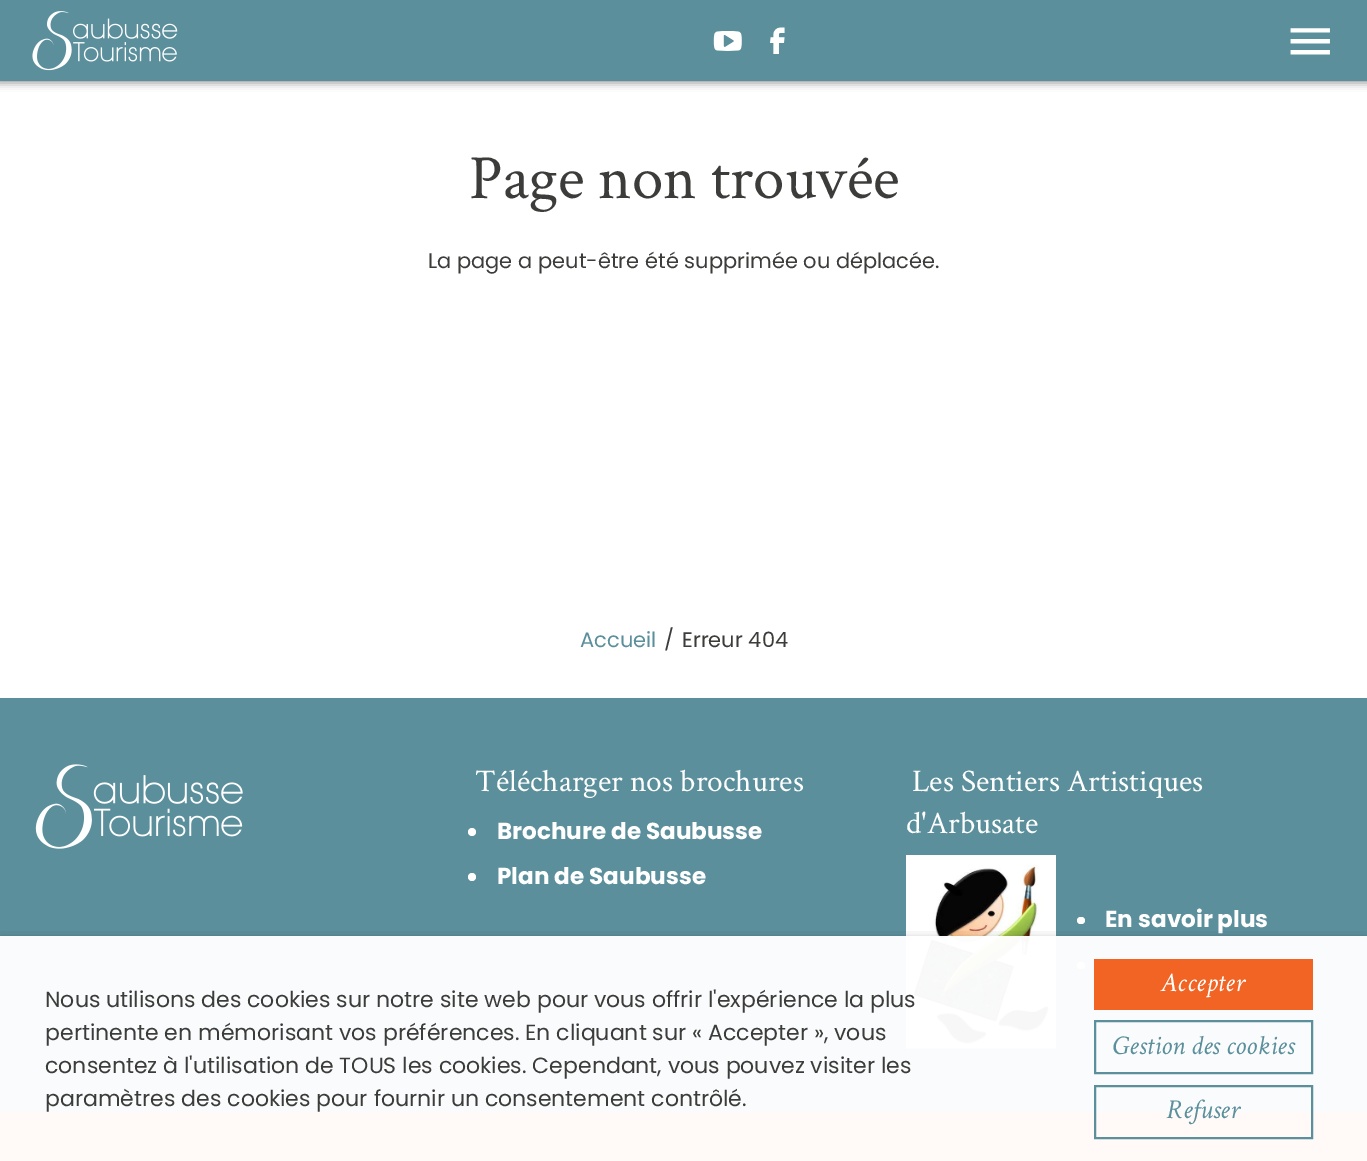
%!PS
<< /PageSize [1367 1161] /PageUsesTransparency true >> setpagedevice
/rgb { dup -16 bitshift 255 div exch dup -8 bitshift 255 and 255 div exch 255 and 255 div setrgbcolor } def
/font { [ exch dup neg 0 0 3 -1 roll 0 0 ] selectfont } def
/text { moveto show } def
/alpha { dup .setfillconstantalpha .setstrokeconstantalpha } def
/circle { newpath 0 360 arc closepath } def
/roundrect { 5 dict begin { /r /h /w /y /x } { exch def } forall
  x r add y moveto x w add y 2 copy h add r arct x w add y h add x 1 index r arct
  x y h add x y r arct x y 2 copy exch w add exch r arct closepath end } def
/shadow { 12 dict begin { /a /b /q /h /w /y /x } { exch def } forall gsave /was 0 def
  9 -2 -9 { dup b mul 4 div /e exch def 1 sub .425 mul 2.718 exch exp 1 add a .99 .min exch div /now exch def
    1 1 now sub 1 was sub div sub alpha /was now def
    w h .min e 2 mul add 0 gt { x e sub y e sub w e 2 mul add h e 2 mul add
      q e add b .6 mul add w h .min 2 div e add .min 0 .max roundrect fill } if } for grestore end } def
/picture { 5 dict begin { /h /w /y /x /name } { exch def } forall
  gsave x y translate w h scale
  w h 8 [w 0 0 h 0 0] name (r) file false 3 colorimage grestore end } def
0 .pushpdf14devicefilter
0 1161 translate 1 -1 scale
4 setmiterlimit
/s1 { /CrimsonText-Regular 63 font 16#3C3C3B rgb } def
/s2 { /Poppins-Regular 21 font 16#3C3C3B rgb } def
/s3 { /Poppins-Regular 21 font 16#5B8F9C rgb } def
/s4 { /CrimsonText-Regular 31.5 font 16#FFFFFF rgb } def
/s5 { /Poppins-Bold 23.1 font 16#FFFFFF rgb } def
/s6 { /Poppins-Regular 22 font 16#3C3C3B rgb } def
/s7 { /CrimsonText-Italic 27.25 font 16#FFFFFF rgb } def
/s8 { /CrimsonText-Italic 27.25 font 16#5B8F9C rgb } def
16#FFFFFF rgb
0 0 1367 1161 rectfill
16#323232 rgb
-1 -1 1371 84 0 4 0.5 shadow
16#5B8F9C rgb
0 0 1367 81 rectfill
(pic1.raw) 32 11 146 60 picture
(pic2.raw) 713 31 29 20 picture
(pic3.raw) 770 27 15 27 picture
(pic4.raw) 1290 28 40 27 picture
s1
(Page non trouvée) 469 198 text
s2
(La page a peut-être été supprimée ou déplacée.) 428 268 text
s3
(Accueil) 580 647 text
s2
(/) 664 647 text
(Erreur 404) 682 647 text
16#5B8F9C rgb
0 698 1367 414 rectfill
(pic5.raw) 35 764 208 85 picture
s4
(Télécharger nos brochures) 475 791 text
472 832 4 circle fill
s5
(Brochure de Saubusse) 497 839 text
472 877 4 circle fill
(Plan de Saubusse) 497 884 text
s4
(Les Sentiers Artistiques) 912 791 text
(d'Arbusate) 906 833 text
(pic6.raw) 906 855 150 194 picture
1077 917 8 7 3.5 roundrect fill
s5
(En savoir plus) 1105 927 text
1077 962 8 7 3.5 roundrect fill
16#F16424 rgb
0 1112 1367 49 rectfill
gsave
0 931 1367 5 rectclip
16#000000 rgb
0 944 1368 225 0 7.5 0.5 shadow
grestore
0.97 alpha
16#FFFFFF rgb
0 936 1367 225 rectfill
1 alpha
s6
(Nous utilisons des cookies sur notre site web pour vous offrir l'expérience la plus) 45 1007 text
(pertinente en mémorisant vos préférences. En cliquant sur « Accepter », vous) 45 1040 text
(consentez à l'utilisation de TOUS les cookies. Cependant, vous pouvez visiter les) 45 1073 text
(paramètres des cookies pour fournir un consentement contrôlé.) 45 1106 text
16#F16424 rgb
1094 959 219 51 rectfill
s7
(Accepter) 1161 991 text
16#5B8F9C rgb
2 setlinewidth
1095 1021 217 52 rectstroke
(Gestion des cookies) 1112 1054 text
1095 1086 217 52 rectstroke
(Refuser) 1166 1118 text
.poppdf14devicefilter showpage
